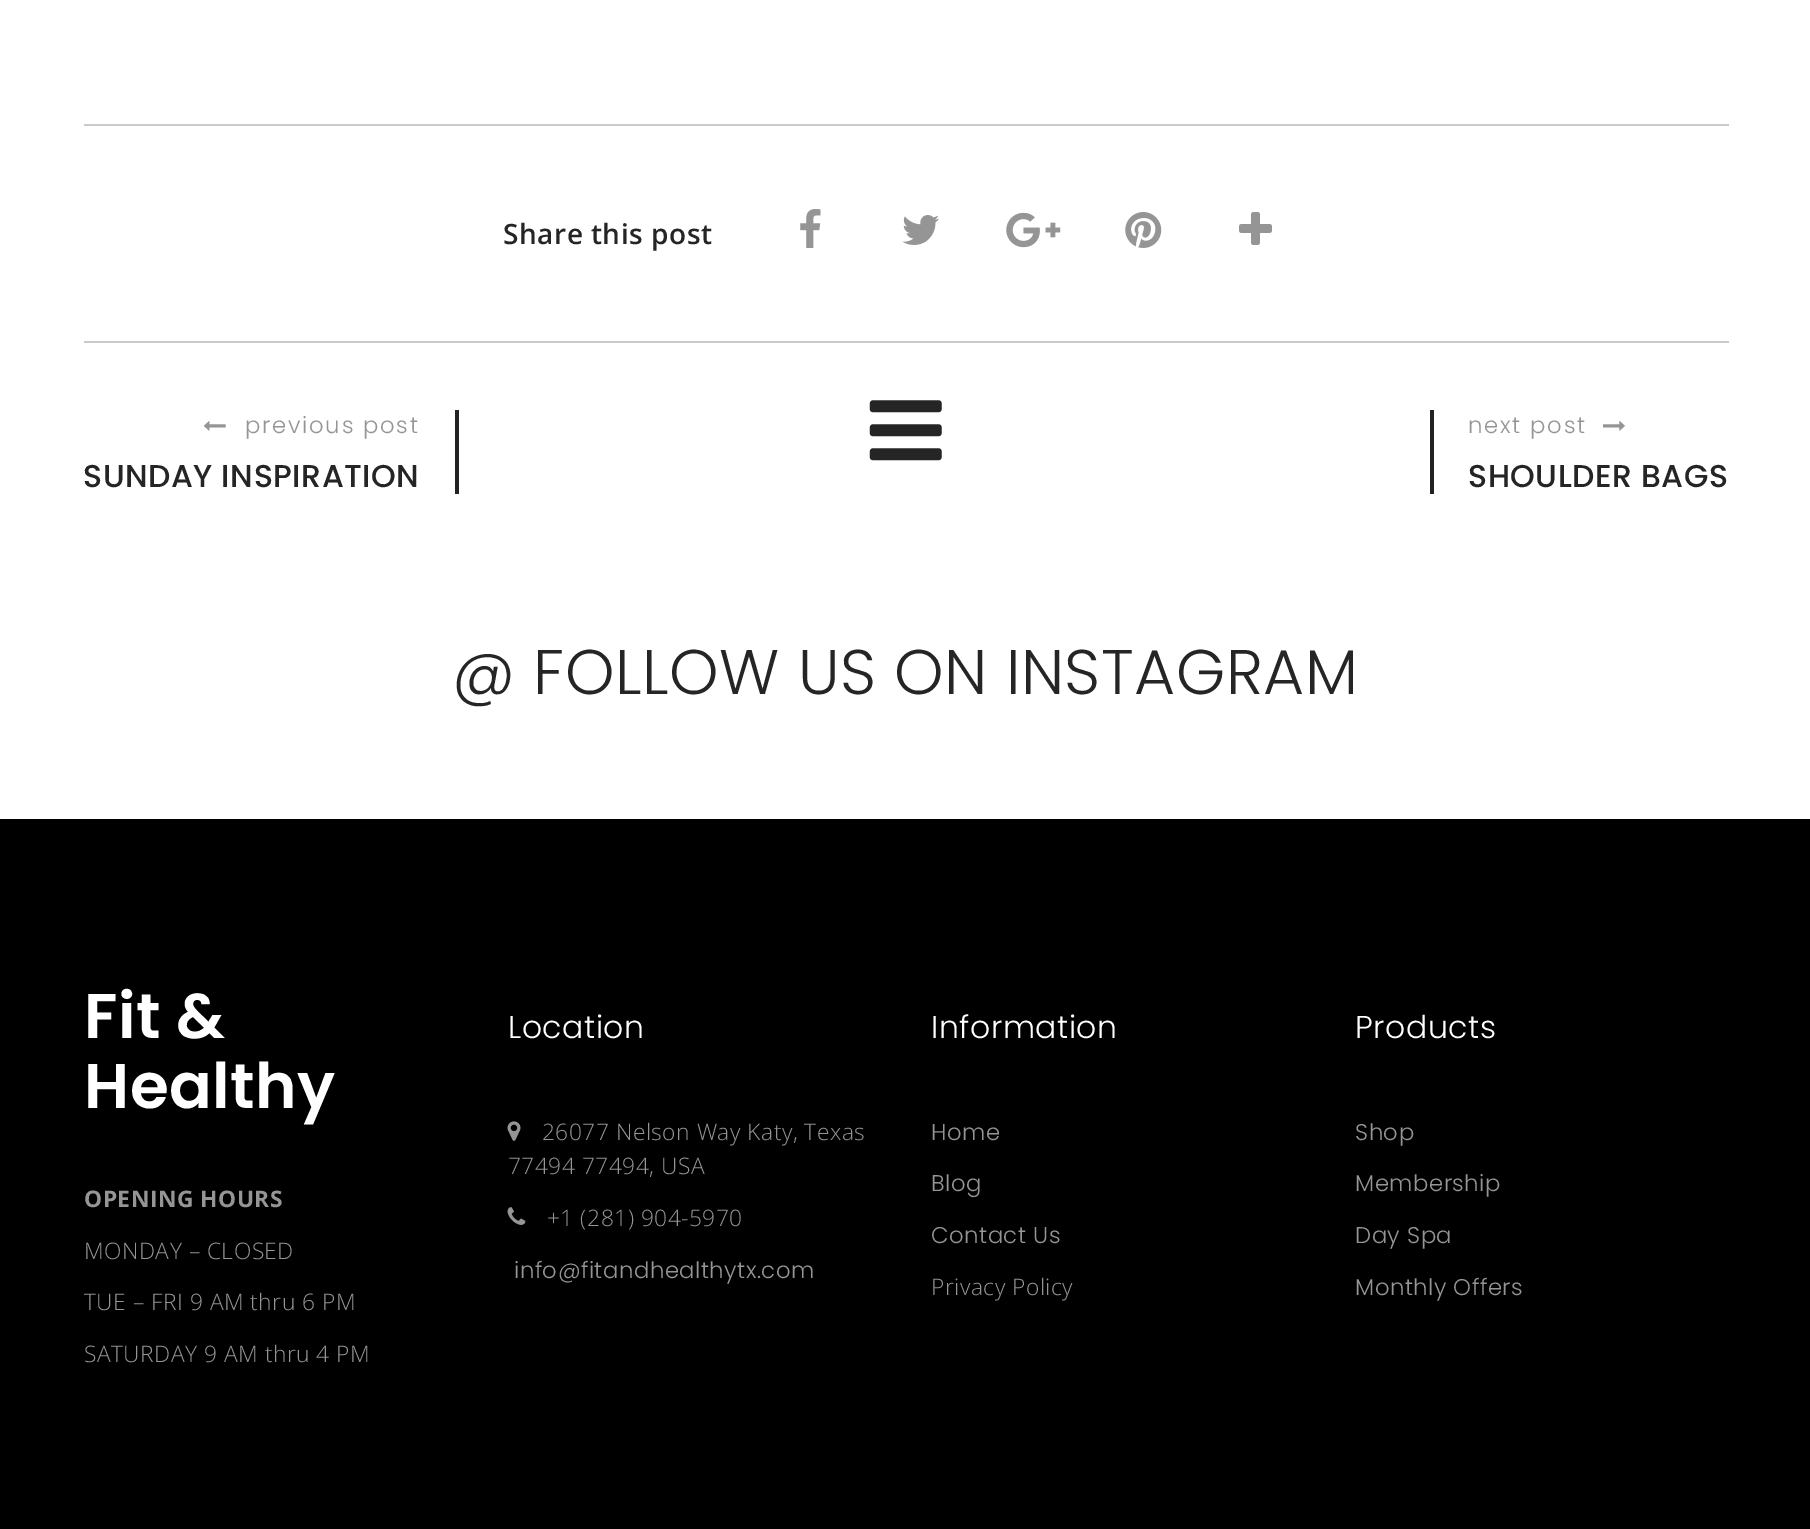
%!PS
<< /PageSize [1810 1529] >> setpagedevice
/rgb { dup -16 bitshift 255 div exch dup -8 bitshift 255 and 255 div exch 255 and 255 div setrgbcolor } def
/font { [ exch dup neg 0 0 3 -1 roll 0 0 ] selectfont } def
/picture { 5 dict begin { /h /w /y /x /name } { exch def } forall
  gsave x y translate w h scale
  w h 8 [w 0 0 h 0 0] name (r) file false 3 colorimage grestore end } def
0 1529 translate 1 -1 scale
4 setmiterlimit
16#FFFFFF rgb
0 0 1810 1529 rectfill
16#CACACA rgb
84 124 1645 2 rectfill
84 341 1645 2 rectfill
/OpenSans-SemiBold 28 font
16#252525 rgb
503 244 moveto 0.5 0 (Share this post) ashow
(pic1.raw) 800 209 21 39 picture
(pic2.raw) 902 215 37 30 picture
(pic3.raw) 1006 212 55 36 picture
(pic4.raw) 1125 212 37 36 picture
(pic5.raw) 1239 212 33 33 picture
16#222222 rgb
455 410 4 84 rectfill
(pic6.raw) 203 421 23 10 picture
/Poppins-Light 22.75 font
16#959595 rgb
245 433 moveto 1.75 0 (previous post) ashow
/Poppins-Medium 31.5 font
16#252525 rgb
83 487 moveto 0.5 0 (SUNDAY INSPIRATION) ashow
(pic7.raw) 869 400 73 61 picture
16#222222 rgb
1430 410 4 84 rectfill
/Poppins-Light 22.75 font
16#959595 rgb
1468 433 moveto 1.75 0 (next post) ashow
(pic8.raw) 1603 421 22 10 picture
/Poppins-Medium 31.5 font
16#252525 rgb
1468 487 moveto 0.5 0 (SHOULDER BAGS) ashow
/Poppins-Light 63 font
452 694 moveto 0.5 0 (@ FOLLOW US ON INSTAGRAM) ashow
16#000000 rgb
0 819 1810 710 rectfill
/Poppins-SemiBold 63 font
16#FFFFFF rgb
84 1038 moveto 0.5 0 (Fit &) ashow
84 1108 moveto 0.5 0 (Healthy) ashow
/OpenSans-Bold 22.75 font
16#959595 rgb
84 1207 moveto 0.5 0 (OPENING HOURS) ashow
/OpenSans-Light 22.75 font
84 1259 moveto 0.5 0 (MONDAY – CLOSED) ashow
84 1310 moveto 0.5 0 (TUE – FRI 9 AM thru 6 PM) ashow
84 1362 moveto 0.5 0 (SATURDAY 9 AM thru 4 PM) ashow
/Poppins-Light 31.5 font
16#FFFFFF rgb
508 1038 moveto 0.5 0 (Location) ashow
(pic9.raw) 507 1121 14 20 picture
/OpenSans-Light 22.75 font
16#959595 rgb
542 1140 moveto 0.5 0 (26077 Nelson Way Katy, Texas) ashow
508 1174 moveto 0.5 0 (77494 77494, USA) ashow
(pic10.raw) 507 1207 19 18 picture
547 1226 moveto 0.5 0 (+1 \(281\) 904-5970) ashow
/Poppins-Light 22.75 font
514 1278 moveto 0.5 0 (info@fitandhealthytx.com) ashow
/Poppins-Light 31.5 font
16#FFFFFF rgb
931 1038 moveto 0.5 0 (Information) ashow
/Poppins-Light 22.75 font
16#959595 rgb
931 1140 moveto 0.5 0 (Home) ashow
931 1191 moveto 0.5 0 (Blog) ashow
931 1243 moveto 0.5 0 (Contact Us) ashow
/OpenSans-Light 22.75 font
931 1295 moveto 0.5 0 (Privacy Policy) ashow
/Poppins-Light 31.5 font
16#FFFFFF rgb
1355 1038 moveto 0.5 0 (Products) ashow
/Poppins-Light 22.75 font
16#959595 rgb
1355 1140 moveto 0.5 0 (Shop) ashow
1355 1191 moveto 0.5 0 (Membership) ashow
1355 1243 moveto 0.5 0 (Day Spa) ashow
1355 1295 moveto 0.5 0 (Monthly Offers) ashow
showpage
